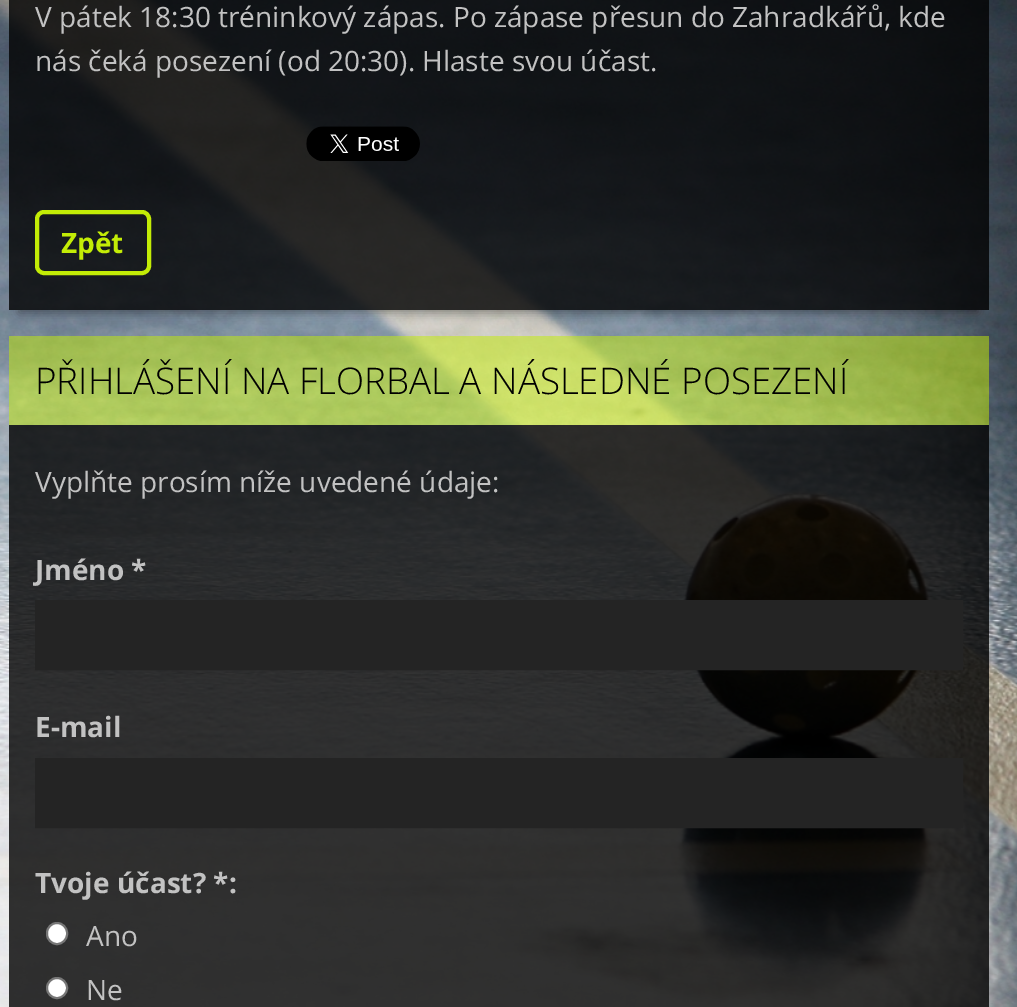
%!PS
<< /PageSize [1017 1007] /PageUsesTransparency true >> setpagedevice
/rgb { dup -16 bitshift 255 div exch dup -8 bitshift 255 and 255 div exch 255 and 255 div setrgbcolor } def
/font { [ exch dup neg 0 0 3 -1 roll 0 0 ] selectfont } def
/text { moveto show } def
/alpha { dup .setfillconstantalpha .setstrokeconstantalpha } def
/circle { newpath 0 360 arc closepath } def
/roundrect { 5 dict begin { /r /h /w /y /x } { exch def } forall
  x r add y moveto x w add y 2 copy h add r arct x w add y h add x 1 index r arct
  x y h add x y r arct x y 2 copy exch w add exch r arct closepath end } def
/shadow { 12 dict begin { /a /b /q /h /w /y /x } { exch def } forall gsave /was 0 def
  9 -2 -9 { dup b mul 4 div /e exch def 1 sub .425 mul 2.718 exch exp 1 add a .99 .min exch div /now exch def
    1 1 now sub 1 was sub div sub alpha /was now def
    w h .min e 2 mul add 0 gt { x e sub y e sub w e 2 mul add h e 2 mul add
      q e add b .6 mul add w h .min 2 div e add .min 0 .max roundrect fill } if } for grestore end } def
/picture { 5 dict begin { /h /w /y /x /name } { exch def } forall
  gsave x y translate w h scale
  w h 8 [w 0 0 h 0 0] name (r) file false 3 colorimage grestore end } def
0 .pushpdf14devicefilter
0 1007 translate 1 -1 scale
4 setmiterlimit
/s1 { /OpenSans-Regular 28 font 16#C2C2C2 rgb } def
/s2 { /OpenSans-Bold 28 font 16#C3EC06 rgb } def
/s3 { /OpenSans-Light 36.75 font 16#000000 rgb } def
/s4 { /OpenSans-Bold 28 font 16#C2C2C2 rgb } def
16#FFFFFF rgb
0 0 1017 1007 rectfill
(pic1.raw) 0 0 1017 1007 picture
gsave
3 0 moveto 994 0 lineto 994 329 lineto 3 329 lineto closepath 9 -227 moveto 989 -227 lineto 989 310 lineto 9 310 lineto closepath eoclip newpath
16#000000 rgb
19 -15 959 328 0 5 0.35 shadow
grestore
0.8 alpha
16#000000 rgb
9 0 980 126 rectfill
1 alpha
s1
(V pátek 18:30 tréninkový zápas. Po zápase přesun do Zahradkářů, kde) 35 27 text
(nás čeká posezení \(od 20:30\). Hlaste svou účast.) 35 71 text
0.8 alpha
16#000000 rgb
9 126 980 184 rectfill
1 alpha
(pic2.raw) 306 126 114 35 picture
16#C3EC06 rgb
4 setlinewidth
37 212 112 61 7 roundrect stroke
s2
(Zpět) 61 253 text
0.5 alpha
9 336 980 89 rectfill
1 alpha
s3
(PŘIHLÁŠENÍ NA FLORBAL A NÁSLEDNÉ POSEZENÍ) 35 394 text
0.8 alpha
9 425 980 582 rectfill
1 alpha
s1
(Vyplňte prosím níže uvedené údaje:) 35 492 text
s4
(Jméno *) 35 580 text
16#242424 rgb
36 601 moveto 962 601 lineto 962 669 lineto 36 669 lineto closepath gsave fill grestore
2 setlinewidth
stroke
s4
(E-mail) 35 737 text
16#242424 rgb
36 759 moveto 962 759 lineto 962 827 lineto 36 827 lineto closepath gsave fill grestore
stroke
s4
(Tvoje účast? *:) 35 893 text
16#FFFFFF rgb
47 923 20 21 10 roundrect gsave fill grestore
16#767676 rgb
stroke
s1
(Ano) 86 946 text
16#FFFFFF rgb
57 988 10 circle gsave fill grestore
16#767676 rgb
stroke
s1
(Ne) 86 1000 text
.poppdf14devicefilter showpage
